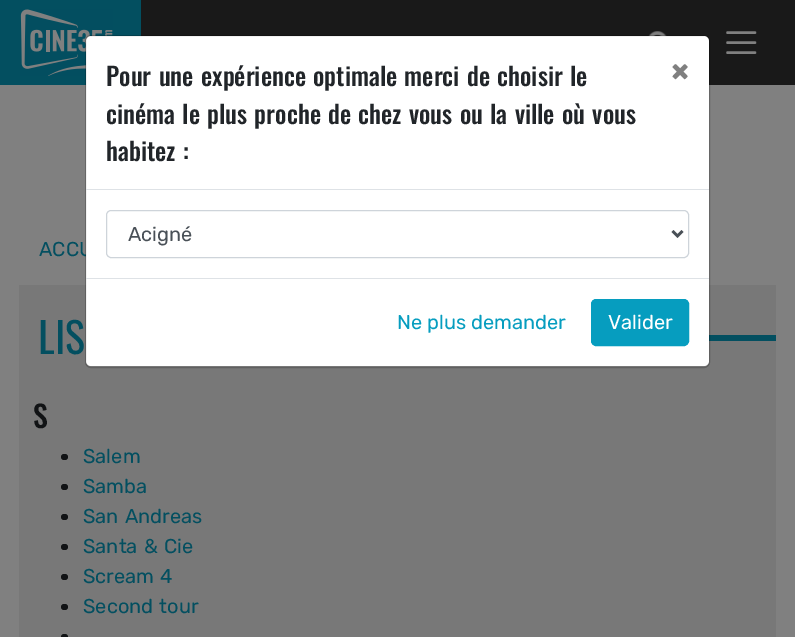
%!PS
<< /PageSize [795 637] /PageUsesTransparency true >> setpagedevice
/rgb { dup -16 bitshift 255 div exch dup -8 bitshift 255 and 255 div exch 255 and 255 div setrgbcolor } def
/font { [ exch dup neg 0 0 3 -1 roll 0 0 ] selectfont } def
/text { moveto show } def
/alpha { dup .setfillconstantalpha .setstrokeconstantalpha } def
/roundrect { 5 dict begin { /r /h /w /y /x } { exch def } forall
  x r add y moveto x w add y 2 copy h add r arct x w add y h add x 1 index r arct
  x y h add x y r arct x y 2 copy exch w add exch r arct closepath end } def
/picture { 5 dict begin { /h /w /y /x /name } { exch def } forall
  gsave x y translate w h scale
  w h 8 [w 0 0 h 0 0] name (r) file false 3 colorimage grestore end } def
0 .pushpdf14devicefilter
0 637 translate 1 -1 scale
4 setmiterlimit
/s1 { /Rubik-Regular 20 font 16#034F60 rgb } def
/s2 { /Rubik-Bold 30 font 16#808080 rgb } def
/s3 { /Rubik-Regular 20 font 16#495057 rgb } def
/s4 { /Rubik-Regular 20 font 16#069DBF rgb } def
/s5 { /Rubik-Regular 20 font 16#FFFFFF rgb } def
/s6 { /Oswald-Medium 30 font 16#111315 rgb } def
16#191919 rgb
0 0 795 637 rectfill
16#034F60 rgb
0 0 141 85 rectfill
(pic1.raw) 20 9 93 67 picture
16#808080 rgb
0 85 795 552 rectfill
s1
(ACCU) 39 256 text
16#787878 rgb
19 285 757 352 rectfill
16#FFFFFF rgb
86 36 623 330 5 roundrect fill
(pic2.raw) 648 31 19 5 picture
16#034F60 rgb
709 335 67 6 rectfill
0.2 alpha
16#000000 rgb
85.5 35.5 624 332 5.5 roundrect stroke
1 alpha
16#DEE2E6 rgb
86 189 623 1 rectfill
/Oswald-Medium 25 font
16#212529 rgb
106 86 moveto 1.25 0 32 (Pour une) widthshow
201 86 moveto 1.25 0 32 (expérience optimale merci de choisir le) widthshow
106 124 moveto 1.25 0 32 (cinéma le plus proche de chez vous ou la ville où vous) widthshow
106 161 moveto 1.25 0 32 (habitez :) widthshow
s2
(×) 671 81 text
16#CED4DA rgb
106.5 210.5 582 47 4.5 roundrect stroke
16#495057 rgb
2.5 setlinewidth
672.5 231 moveto 677.5 236 lineto 682.5 231 lineto stroke
s3
(Acigné) 128 241 text
16#DEE2E6 rgb
86 278 623 1 rectfill
s4
(Ne plus demander) 397 329 text
591.5 299.5 97 46 4.5 roundrect gsave fill grestore
1 setlinewidth
stroke
s5
(Valider) 608 329 text
16#808080 rgb
2.5 setlinewidth
1 setlinecap
727.5 32.5 moveto 755 32.5 lineto 727.5 42.5 moveto 755 42.5 lineto 727.5 52.5 moveto 755 52.5 lineto stroke
/Oswald-Regular 42 font
16#034F60 rgb
38 354 moveto 1.25 0 32 (LIS) widthshow
s6
(S) 33 428 text
61 454 7 6 3 roundrect fill
s1
(Salem) 83 463 text
16#111315 rgb
61 484 7 6 3 roundrect fill
s1
(Samba) 83 493 text
16#111315 rgb
61 514 7 6 3 roundrect fill
16#034F60 rgb
83 523 moveto 1.25 0 32 (San Andreas) widthshow
16#111315 rgb
61 544 7 6 3 roundrect fill
16#034F60 rgb
83 553 moveto 1.25 0 32 (Santa & Cie) widthshow
16#111315 rgb
61 574 7 6 3 roundrect fill
16#034F60 rgb
83 583 moveto 1.25 0 32 (Scream 4) widthshow
16#111315 rgb
61 604 7 6 3 roundrect fill
16#034F60 rgb
83 613 moveto 1.25 0 32 (Second tour) widthshow
16#111315 rgb
61 634 7 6 3 roundrect fill
.poppdf14devicefilter showpage
